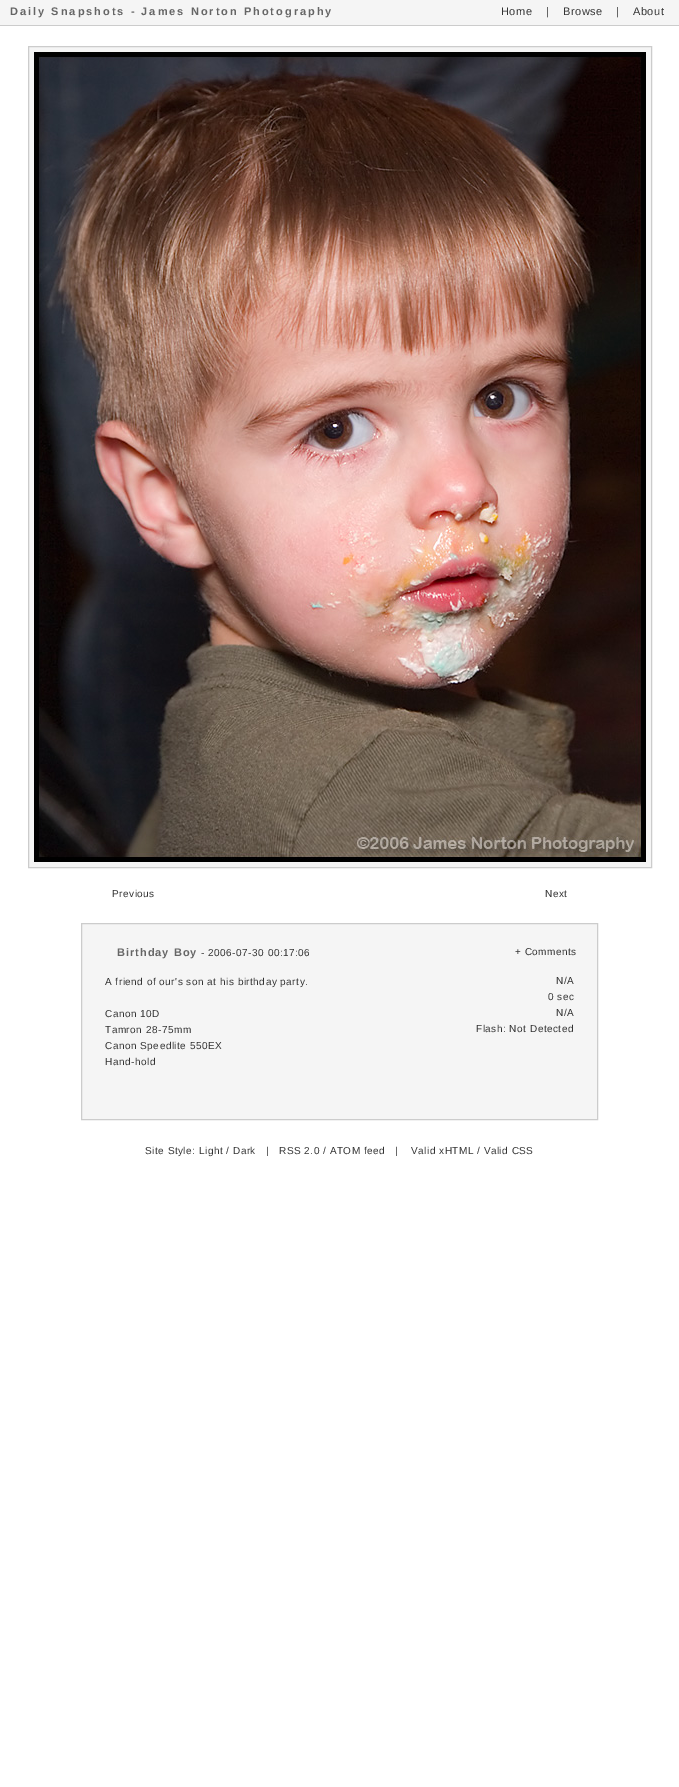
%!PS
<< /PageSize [679 1787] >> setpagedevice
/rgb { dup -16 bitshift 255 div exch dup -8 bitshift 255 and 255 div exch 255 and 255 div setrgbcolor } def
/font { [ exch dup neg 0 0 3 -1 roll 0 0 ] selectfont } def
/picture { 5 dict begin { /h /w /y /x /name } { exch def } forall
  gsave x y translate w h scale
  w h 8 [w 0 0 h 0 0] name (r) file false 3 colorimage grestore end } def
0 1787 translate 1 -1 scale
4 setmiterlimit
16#FFFFFF rgb
0 0 679 1787 rectfill
16#F5F5F5 rgb
0 0 679 25 rectfill
16#CCCCCC rgb
0 25 679 1 rectfill
/LiberationSans-Bold 11 font
16#666666 rgb
10 15 moveto 2 0 (Daily Snapshots - James Norton Photography) ashow
/LiberationSans-Regular 11 font
16#333333 rgb
501 15 moveto 0.5 0 (Home) ashow
546 15 moveto 0.5 0 (|) ashow
563 15 moveto 0.5 0 (Browse) ashow
616 15 moveto 0.5 0 (|) ashow
633 15 moveto 0.5 0 (About) ashow
16#F5F5F5 rgb
28.5 46.5 moveto 651.5 46.5 lineto 651.5 867.5 lineto 28.5 867.5 lineto closepath gsave fill grestore
16#CCCCCC rgb
stroke
(pic1.raw) 34 52 612 810 picture
/LiberationSans-Regular 10 font
16#333333 rgb
112 897 moveto 0.5 0 (Previous) ashow
545 897 moveto 0.5 0 (Next) ashow
16#F5F5F5 rgb
81.5 923.5 moveto 597.5 923.5 lineto 597.5 1119.5 lineto 81.5 1119.5 lineto closepath gsave fill grestore
16#CCCCCC rgb
stroke
/LiberationSans-Bold 11 font
16#666666 rgb
117 956 moveto 1 0 (Birthday Boy) ashow
/LiberationSans-Regular 10 font
16#333333 rgb
201 956 moveto 0.5 0 (- 2006-07-30 00:17:06) ashow
515 955 moveto 0.5 0 (+ Comments) ashow
105 985 moveto 0.5 0 (A friend of our's son at his birthday party.) ashow
105 1017 moveto 0.5 0 (Canon 10D) ashow
105 1033 moveto 0.5 0 (Tamron 28-75mm) ashow
105 1049 moveto 0.5 0 (Canon Speedlite 550EX) ashow
105 1065 moveto 0.5 0 (Hand-hold) ashow
556 984 moveto 0.5 0 (N/A) ashow
548 1000 moveto 0.5 0 (0 sec) ashow
556 1016 moveto 0.5 0 (N/A) ashow
476 1032 moveto 0.5 0 (Flash: Not Detected) ashow
145 1154 moveto 0.5 0 (Site Style: Light / Dark) ashow
266 1154 moveto 0.5 0 (|) ashow
279 1154 moveto 0.5 0 (RSS 2.0 / ATOM feed) ashow
395 1154 moveto 0.5 0 (|) ashow
411 1154 moveto 0.5 0 (Valid xHTML / Valid CSS) ashow
showpage
